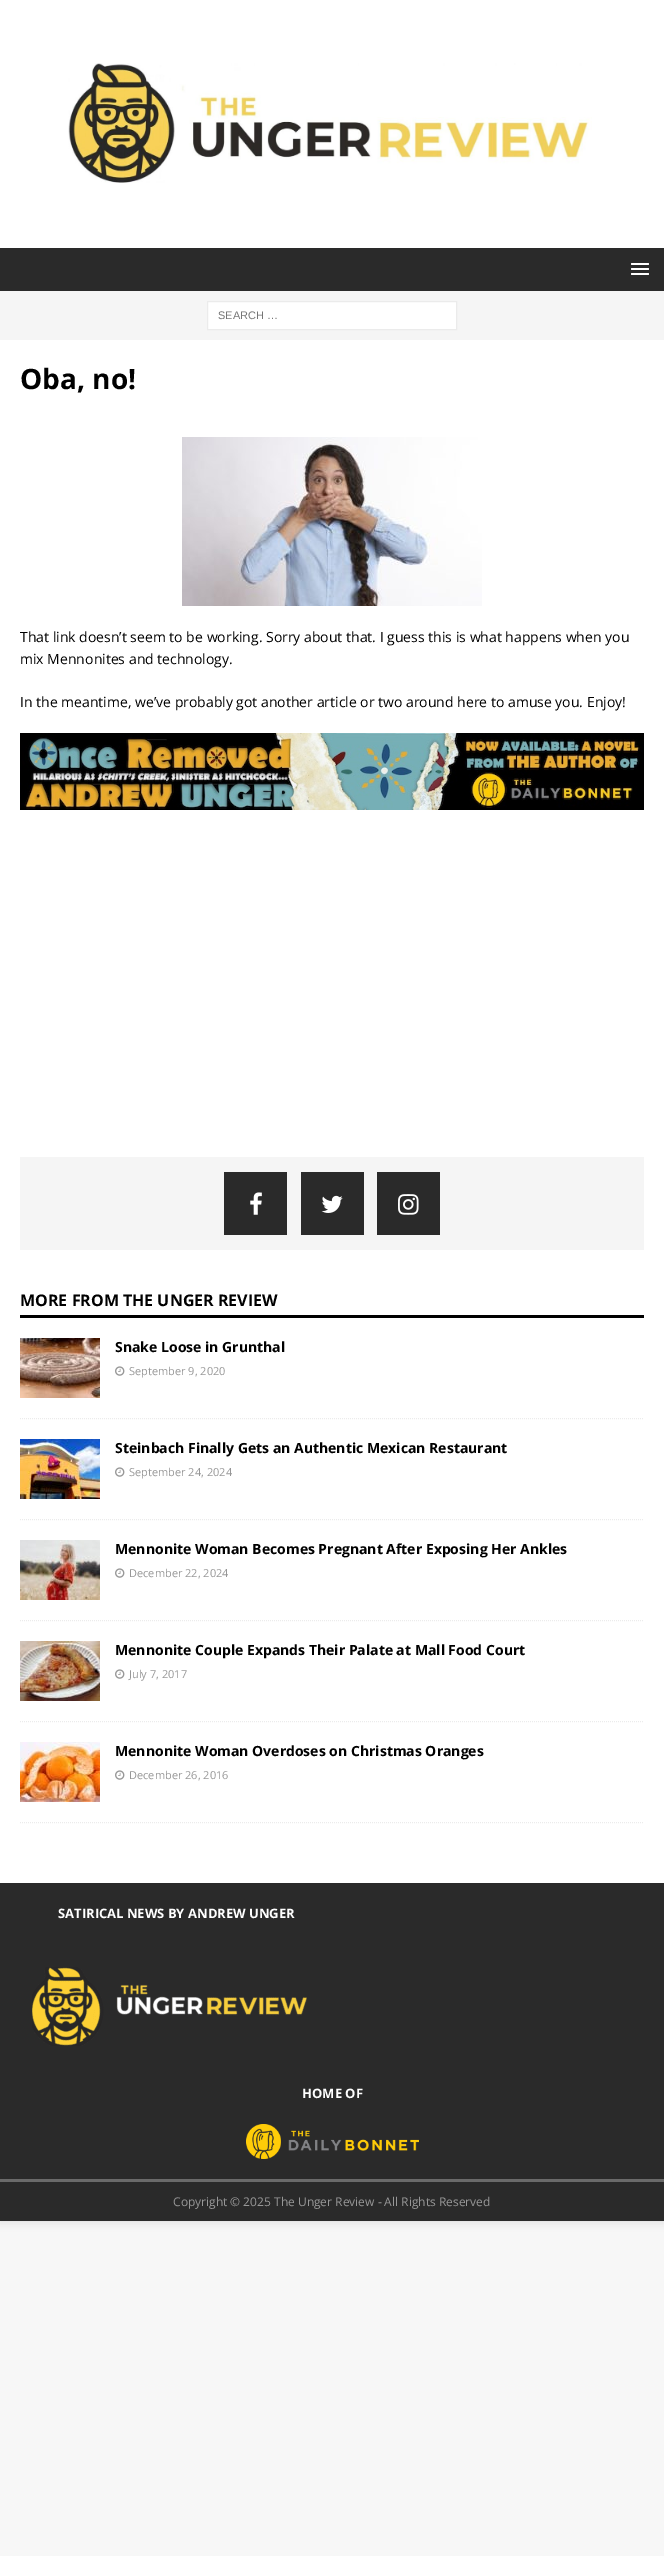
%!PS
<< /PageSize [664 2556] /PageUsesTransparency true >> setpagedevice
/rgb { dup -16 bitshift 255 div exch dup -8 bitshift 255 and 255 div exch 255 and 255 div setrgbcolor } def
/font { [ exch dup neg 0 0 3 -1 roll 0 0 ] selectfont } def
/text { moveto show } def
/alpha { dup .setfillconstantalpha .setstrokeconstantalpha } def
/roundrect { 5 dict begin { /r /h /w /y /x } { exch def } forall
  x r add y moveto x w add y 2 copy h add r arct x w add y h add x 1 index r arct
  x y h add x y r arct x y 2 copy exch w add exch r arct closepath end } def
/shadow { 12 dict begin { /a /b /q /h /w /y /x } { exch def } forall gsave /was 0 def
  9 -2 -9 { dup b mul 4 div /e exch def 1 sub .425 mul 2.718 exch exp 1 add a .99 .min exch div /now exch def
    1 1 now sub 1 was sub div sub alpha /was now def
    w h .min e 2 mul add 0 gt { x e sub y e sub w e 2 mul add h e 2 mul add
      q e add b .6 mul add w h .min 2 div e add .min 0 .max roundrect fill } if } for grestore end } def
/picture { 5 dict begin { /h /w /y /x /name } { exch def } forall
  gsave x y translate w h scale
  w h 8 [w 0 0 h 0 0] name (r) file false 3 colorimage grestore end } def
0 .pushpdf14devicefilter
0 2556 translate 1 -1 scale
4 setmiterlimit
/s1 { /LiberationSans-Regular 11 font 16#757575 rgb } def
/s2 { /OpenSans-Bold 28 font 16#000000 rgb } def
/s3 { /OpenSans-Regular 14 font 16#000000 rgb } def
/s4 { /OpenSans-Bold 16 font 16#000000 rgb } def
/s5 { /OpenSans-Bold 14 font 16#000000 rgb } def
/s6 { /OpenSans-Regular 11 font 16#979797 rgb } def
/s7 { /OpenSans-Bold 13 font 16#FFFFFF rgb } def
/s8 { /OpenSans-Regular 12 font 16#979797 rgb } def
16#F7F7F7 rgb
0 0 664 2556 rectfill
16#323232 rgb
0 0 664 2221 0 5 0.17 shadow
16#FFFFFF rgb
0 0 664 248 rectfill
(pic1.raw) 68 63 524 120 picture
16#2A2A2A rgb
0 248 664 43 rectfill
16#FFFFFF rgb
631 263 18 2 1 roundrect fill
631 268 18 2 1 roundrect fill
631 273 18 2 1 roundrect fill
16#F5F5F5 rgb
0 291 664 49 rectfill
16#FFFFFF rgb
207.5 301.5 moveto 456.5 301.5 lineto 456.5 329.5 lineto 207.5 329.5 lineto closepath gsave fill grestore
16#EBEBEB rgb
stroke
s1
(SEARCH …) 218 319 text
16#FFFFFF rgb
0 340 664 1543 rectfill
s2
(Oba, no!) 20 389 text
(pic2.raw) 182 437 300 169 picture
s3
(That link doesn’t seem to be working. Sorry about that. I guess this is what happens when you) 20 642 text
(mix Mennonites and technology.) 20 664 text
(In the meantime, we’ve probably got another article or two around here to amuse you. Enjoy!) 20 707 text
(pic3.raw) 20 733 624 77 picture
16#F5F5F5 rgb
20 1157 624 93 rectfill
16#2A2A2A rgb
224 1172 63 63 rectfill
(pic4.raw) 250 1192 12 23 picture
301 1172 63 63 rectfill
(pic5.raw) 321 1195 22 18 picture
377 1172 63 63 rectfill
(pic6.raw) 398 1194 21 21 picture
16#000000 rgb
20 1315 624 3 rectfill
s4
(MORE FROM THE UNGER REVIEW) 20 1306 text
16#EBEBEB rgb
[1 1] 0 setdash
20 1418.5 moveto 644 1418.5 lineto stroke
(pic7.raw) 20 1338 80 60 picture
s5
(Snake Loose in Grunthal) 115 1352 text
(pic8.raw) 115 1366 10 10 picture
s6
(September 9, 2020) 129 1375 text
16#EBEBEB rgb
20 1519.5 moveto 644 1519.5 lineto stroke
(pic9.raw) 20 1439 80 60 picture
s5
(Steinbach Finally Gets an Authentic Mexican Restaurant) 115 1453 text
(pic8.raw) 115 1467 10 10 picture
s6
(September 24, 2024) 129 1476 text
16#EBEBEB rgb
20 1620.5 moveto 644 1620.5 lineto stroke
(pic10.raw) 20 1540 80 60 picture
s5
(Mennonite Woman Becomes Pregnant After Exposing Her Ankles) 115 1554 text
(pic8.raw) 115 1568 10 10 picture
s6
(December 22, 2024) 129 1577 text
16#EBEBEB rgb
20 1721.5 moveto 644 1721.5 lineto stroke
(pic11.raw) 20 1641 80 60 picture
s5
(Mennonite Couple Expands Their Palate at Mall Food Court) 115 1655 text
(pic8.raw) 115 1669 10 10 picture
s6
(July 7, 2017) 129 1678 text
16#EBEBEB rgb
20 1822.5 moveto 644 1822.5 lineto stroke
(pic12.raw) 20 1742 80 60 picture
s5
(Mennonite Woman Overdoses on Christmas Oranges) 115 1756 text
(pic8.raw) 115 1770 10 10 picture
s6
(December 26, 2016) 129 1779 text
16#2A2A2A rgb
0 1883 664 296 rectfill
s7
(SATIRICAL NEWS BY ANDREW UNGER) 58 1918 text
(pic13.raw) 32 1967 275 79 picture
(HOME OF) 302 2098 text
(pic14.raw) 246 2124 173 35 picture
16#2A2A2A rgb
0 2182 664 39 rectfill
16#6A6A6A rgb
0 2179 664 3 rectfill
s8
(Copyright © 2025 The Unger Review - All Rights Reserved) 173 2206 text
.poppdf14devicefilter showpage
